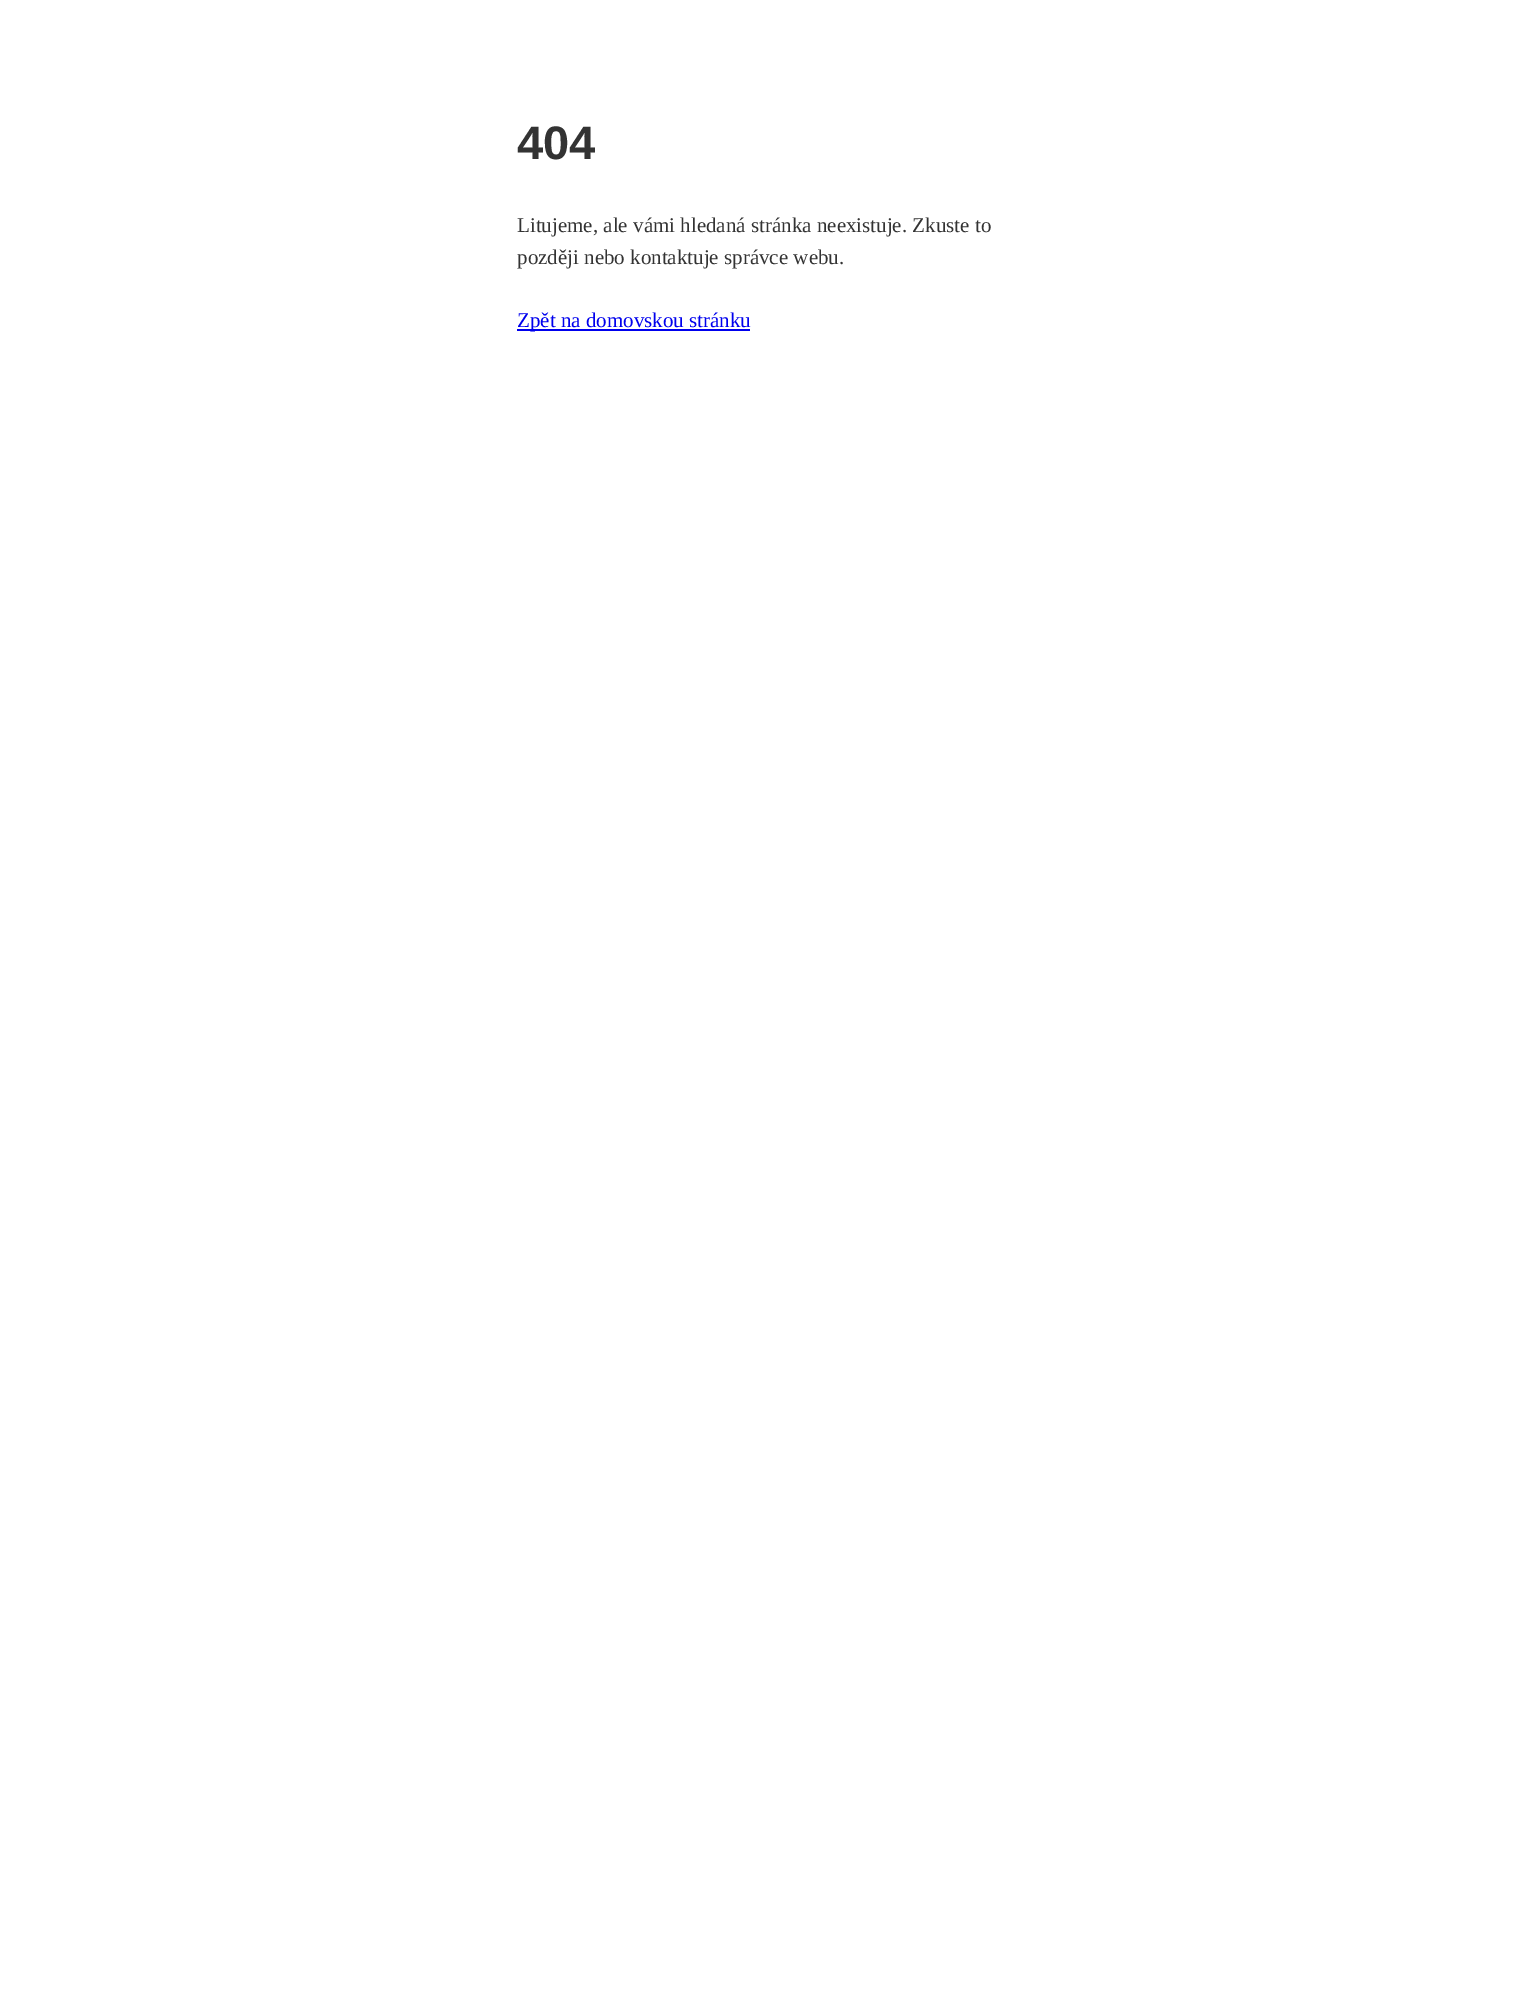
%!PS
<< /PageSize [1533 1997] >> setpagedevice
/rgb { dup -16 bitshift 255 div exch dup -8 bitshift 255 and 255 div exch 255 and 255 div setrgbcolor } def
/font { [ exch dup neg 0 0 3 -1 roll 0 0 ] selectfont } def
/text { moveto show } def
0 1997 translate 1 -1 scale
4 setmiterlimit
/s1 { /LiberationSans-Bold 47 font 16#333333 rgb } def
/s2 { /LiberationSerif-Regular 21 font 16#333333 rgb } def
/s3 { /LiberationSerif-Regular 21 font 16#0000EE rgb } def
16#FFFFFF rgb
0 0 1533 1997 rectfill
s1
(404) 517 159 text
s2
(Litujeme, ale vámi hledaná stránka neexistuje. Zkuste to) 517 232 text
(později nebo kontaktuje správce webu.) 517 264 text
16#0000EE rgb
517 329 233 2 rectfill
(Zpět na domovskou stránku) 517 327 text
showpage
